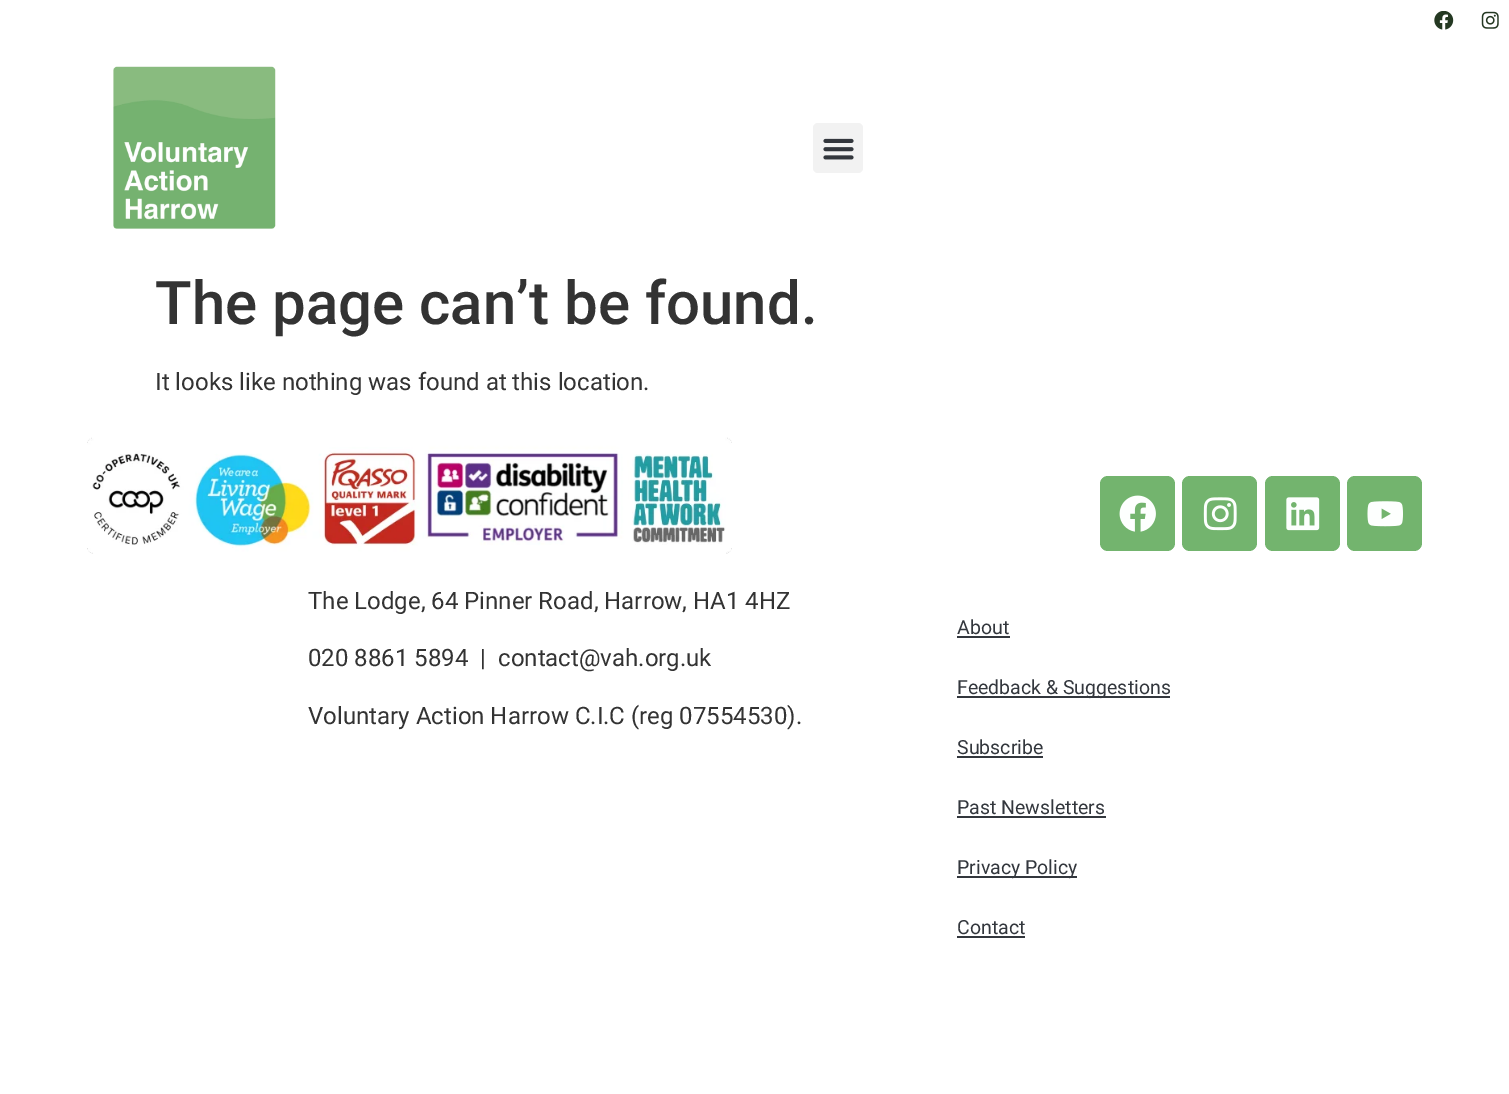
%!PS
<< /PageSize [1509 1094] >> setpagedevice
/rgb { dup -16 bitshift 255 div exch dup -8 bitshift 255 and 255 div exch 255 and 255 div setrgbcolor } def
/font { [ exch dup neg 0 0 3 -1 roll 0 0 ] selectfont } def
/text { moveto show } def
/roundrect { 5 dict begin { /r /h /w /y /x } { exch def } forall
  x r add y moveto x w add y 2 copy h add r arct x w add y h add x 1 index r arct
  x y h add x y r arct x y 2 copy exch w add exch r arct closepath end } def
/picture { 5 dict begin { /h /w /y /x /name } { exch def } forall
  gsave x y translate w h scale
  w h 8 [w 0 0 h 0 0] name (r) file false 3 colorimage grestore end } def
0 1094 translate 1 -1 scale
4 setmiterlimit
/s1 { /Roboto-Medium 60 font 16#333333 rgb } def
/s2 { /Roboto-Regular 24 font 16#333333 rgb } def
/s3 { /Roboto-Regular 19.5 font 16#33373D rgb } def
16#FFFFFF rgb
0 0 1509 1094 rectfill
(pic1.raw) 1434 11 20 19 picture
(pic2.raw) 1481 11 18 18 picture
(pic3.raw) 113 66 163 163 picture
16#F2F2F2 rgb
813 123 50 50 5 roundrect fill
(pic4.raw) 823 138 31 22 picture
s1
(The page can’t be found.) 155 324 text
s2
(It looks like nothing was found at this location.) 155 390 text
(pic5.raw) 87 437 645 117 picture
16#73B46E rgb
1100 476 75 75 8 roundrect fill
(pic6.raw) 1119 495 37 37 picture
1182 476 75 75 8 roundrect fill
(pic7.raw) 1203 497 34 34 picture
1265 476 75 75 8 roundrect fill
(pic8.raw) 1286 497 34 34 picture
1347 476 75 75 8 roundrect fill
(pic9.raw) 1367 501 36 26 picture
s2
(The Lodge, 64 Pinner Road, Harrow, HA1 4HZ) 308 609 text
(020 8861 5894  |) 308 666 text
(contact@vah.org.uk) 498 666 text
(Voluntary Action Harrow C.I.C \(reg 07554530\).) 308 724 text
s3
(About) 957 634 text
957 636 53 2 rectfill
957 696 213 2 rectfill
(Feedback & Suggestions) 957 694 text
(Subscribe) 957 754 text
957 756 86 2 rectfill
(Past Newsletters) 957 814 text
957 816 149 2 rectfill
957 876 120 2 rectfill
(Privacy Policy) 957 874 text
(Contact) 957 934 text
957 936 68 2 rectfill
showpage
